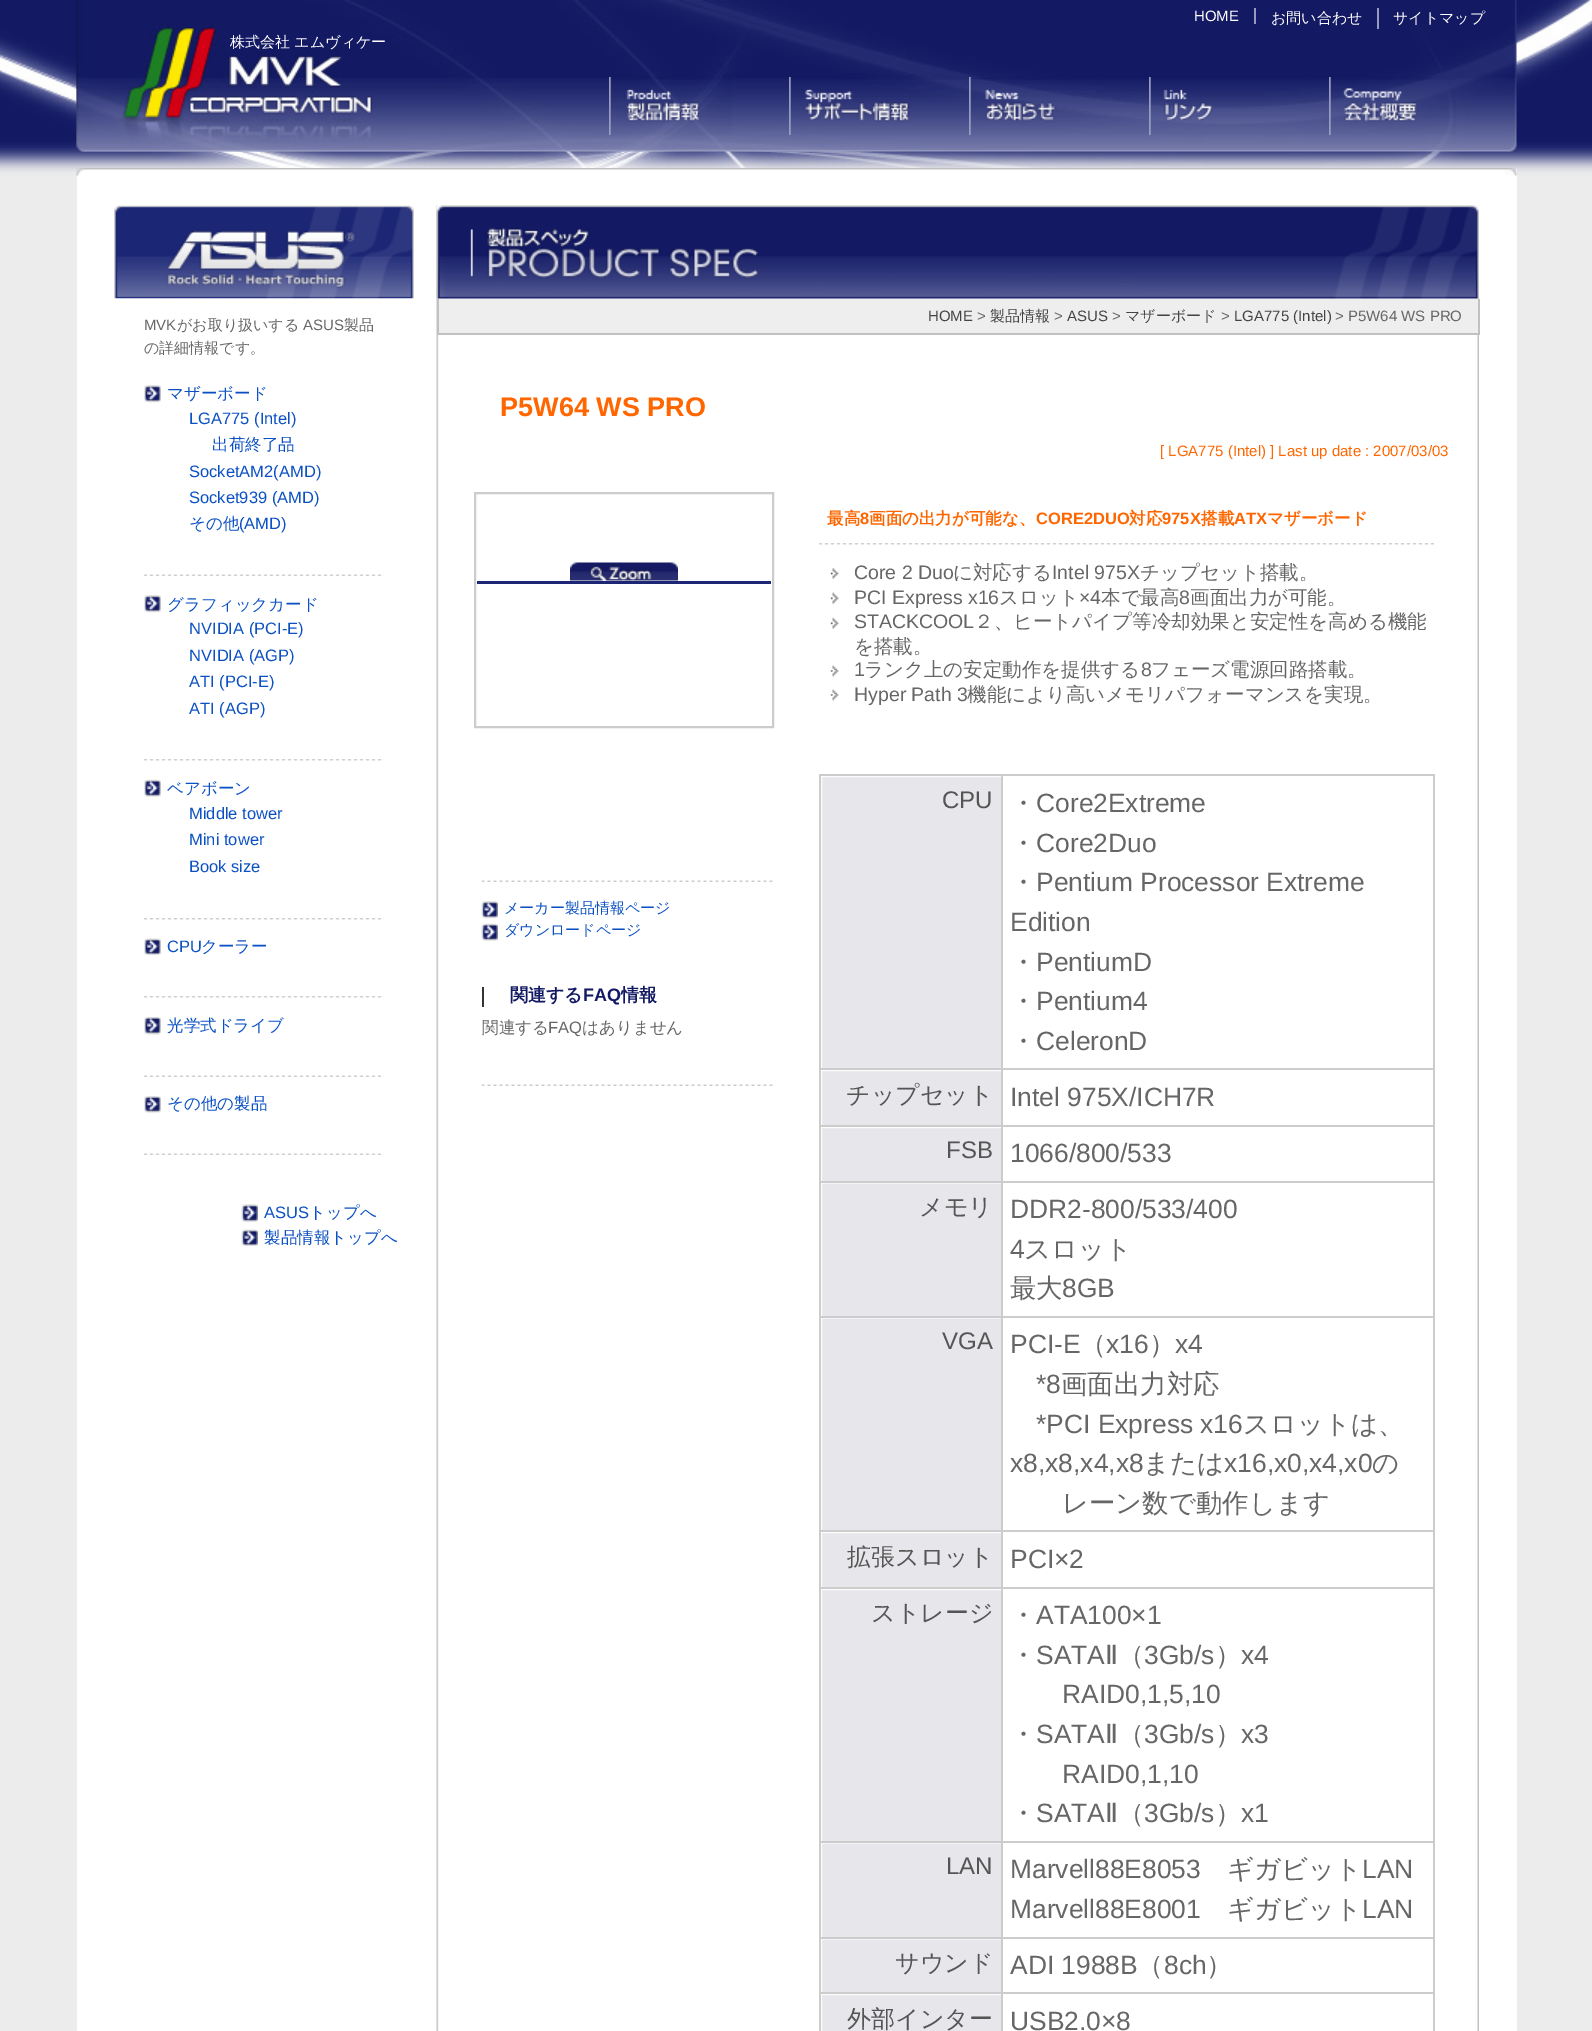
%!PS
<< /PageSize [1592 2031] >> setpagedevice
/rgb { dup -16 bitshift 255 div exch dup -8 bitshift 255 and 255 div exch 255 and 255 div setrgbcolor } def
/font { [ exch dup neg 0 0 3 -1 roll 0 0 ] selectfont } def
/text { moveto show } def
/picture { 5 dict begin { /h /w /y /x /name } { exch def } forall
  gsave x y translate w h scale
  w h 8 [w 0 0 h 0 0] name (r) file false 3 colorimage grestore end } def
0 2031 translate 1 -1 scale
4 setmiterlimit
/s1 { /LiberationSans-Regular 15 font 16#FFFFFF rgb } def
/s2 { /WenQuanYiZenHei-Medium 15 font 16#FFFFFF rgb } def
/s3 { /LiberationSans-Regular 15 font 16#666666 rgb } def
/s4 { /WenQuanYiZenHei-Medium 15 font 16#666666 rgb } def
/s5 { /WenQuanYiZenHei-Medium 16.5 font 16#0B51C3 rgb } def
/s6 { /LiberationSans-Regular 16.5 font 16#0B51C3 rgb } def
/s7 { /LiberationSans-Regular 15 font 16#444444 rgb } def
/s8 { /WenQuanYiZenHei-Medium 15 font 16#444444 rgb } def
/s9 { /LiberationSans-Bold 27 font 16#FF6600 rgb } def
/s10 { /LiberationSans-Regular 15 font 16#FF6600 rgb } def
/s11 { /WenQuanYiZenHei-Medium 15 font 16#0B51C3 rgb } def
/s12 { /WenQuanYiZenHei-Bold 18 font 16#131A63 rgb } def
/s13 { /LiberationSans-Bold 18 font 16#131A63 rgb } def
/s14 { /WenQuanYiZenHei-Medium 16.5 font 16#666666 rgb } def
/s15 { /LiberationSans-Regular 16.5 font 16#666666 rgb } def
/s16 { /WenQuanYiZenHei-Bold 16.5 font 16#FF6600 rgb } def
/s17 { /LiberationSans-Bold 16.5 font 16#FF6600 rgb } def
/s18 { /LiberationSans-Regular 19.5 font 16#666666 rgb } def
/s19 { /WenQuanYiZenHei-Medium 19.5 font 16#666666 rgb } def
/s20 { /LiberationSans-Regular 24 font 16#555555 rgb } def
/s21 { /WenQuanYiZenHei-Medium 26.4 font 16#666666 rgb } def
/s22 { /LiberationSans-Regular 26.4 font 16#666666 rgb } def
/s23 { /WenQuanYiZenHei-Medium 24 font 16#555555 rgb } def
/s24 { /DejaVuSans-Regular 26.4 font 16#666666 rgb } def
16#ECECEC rgb
0 0 1592 2031 rectfill
(pic1.raw) 0 0 1592 198 picture
(pic2.raw) 76 0 1441 152 picture
16#979BBF rgb
1254 8 2 16 rectfill
s1
(HOME) 1194 21 text
16#979BBF rgb
1377 8 2 21 rectfill
s2
(お問い合わせ) 1271 23 text
(サイトマップ) 1393 23 text
(pic3.raw) 76 74 375 78 picture
(株式会社 エムヴィケー) 230 47 text
16#979BBF rgb
609 77 2 58 rectfill
(pic4.raw) 610 77 122 58 picture
789 77 2 58 rectfill
(pic5.raw) 790 77 179 58 picture
969 77 2 58 rectfill
(pic6.raw) 970 77 179 58 picture
1149 77 2 58 rectfill
(pic7.raw) 1150 77 179 58 picture
1329 77 2 58 rectfill
(pic8.raw) 1330 77 126 58 picture
16#FFFFFF rgb
77 168 1440 1863 rectfill
(pic9.raw) 76 168 1441 8 picture
(pic10.raw) 114 205 300 94 picture
s3
(MVK) 144 330 text
s4
(がお取り扱いする) 177 330 text
s3
(ASUS) 303 330 text
s4
(製品) 344 330 text
(の詳細情報です。) 144 353 text
(pic11.raw) 144 574 240 2 picture
(pic12.raw) 144 385 17 18 picture
s5
(マザーボード) 167 399 text
s6
(LGA775 \(Intel\)) 189 424 text
s5
(出荷終了品) 212 450 text
s6
(SocketAM2\(AMD\)) 189 477 text
(Socket939 \(AMD\)) 189 503 text
s5
(その他) 189 529 text
s6
(\(AMD\)) 239 529 text
(pic13.raw) 144 759 240 2 picture
(pic12.raw) 144 595 17 18 picture
s5
(グラフィックカード) 167 610 text
s6
(NVIDIA \(PCI-E\)) 189 634 text
(NVIDIA \(AGP\)) 189 661 text
(ATI \(PCI-E\)) 189 687 text
(ATI \(AGP\)) 189 714 text
(pic13.raw) 144 918 240 2 picture
(pic14.raw) 144 779 17 18 picture
s5
(ベアボーン) 167 794 text
s6
(Middle tower) 189 819 text
(Mini tower) 189 845 text
(Book size) 189 872 text
(pic13.raw) 144 996 240 2 picture
(pic15.raw) 144 938 17 17 picture
(CPU) 167 952 text
s5
(クーラー) 201 952 text
(pic11.raw) 144 1075 240 2 picture
(pic16.raw) 144 1017 17 18 picture
(光学式ドライブ) 167 1031 text
(pic11.raw) 144 1153 240 2 picture
(pic17.raw) 144 1096 17 17 picture
(その他の製品) 167 1109 text
(pic18.raw) 241 1204 17 18 picture
s6
(ASUS) 264 1218 text
s5
(トップへ) 309 1218 text
(pic19.raw) 241 1229 17 17 picture
(製品情報トップへ) 264 1243 text
(pic20.raw) 436 205 1043 1826 picture
(pic21.raw) 436 205 1043 94 picture
16#EEEEEE rgb
439 299 1039 34 rectfill
16#C1C1C1 rgb
1479 299 1 36 rectfill
437 333 1042 2 rectfill
437 299 2 36 rectfill
s7
(HOME) 928 321 text
s3
(>) 977 321 text
s8
(製品情報) 990 321 text
s3
(>) 1054 321 text
s7
(ASUS) 1067 321 text
s3
(>) 1112 321 text
s8
(マザーボード) 1125 321 text
s3
(>) 1221 321 text
s7
(LGA775 \(Intel\)) 1234 321 text
s3
(> P5W64 WS PRO) 1335 321 text
s9
(P5W64 WS PRO) 500 416 text
s10
([ LGA775 \(Intel\) ] Last up date : 2007/03/03) 1160 456 text
16#CCCCCC rgb
2 setlinewidth
475 493 298 234 rectstroke
16#1D2675 rgb
477 581 294 3 rectfill
(pic22.raw) 570 562 108 19 picture
(pic23.raw) 481 880 292 2 picture
(pic24.raw) 481 901 17 18 picture
s11
(メーカー製品情報ページ) 504 913 text
(pic25.raw) 481 923 17 18 picture
(ダウンロードページ) 504 935 text
(pic23.raw) 481 1084 292 2 picture
16#333333 rgb
482 987 2 20 rectfill
s12
(関連する) 510 1001 text
s13
(FAQ) 583 1001 text
s12
(情報) 621 1001 text
s14
(関連する) 482 1033 text
s15
(FAQ) 548 1033 text
s14
(はありません) 582 1033 text
(pic26.raw) 819 543 615 2 picture
s16
(最高) 827 524 text
s17
(8) 860 524 text
s16
(画面の出力が可能な、) 869 524 text
s17
(CORE2DUO) 1036 524 text
s16
(対応) 1129 524 text
s17
(975X) 1162 524 text
s16
(搭載) 1201 524 text
s17
(ATX) 1234 524 text
s16
(マザーボード) 1267 524 text
(pic27.raw) 830 568 9 11 picture
s18
(Core 2 Duo) 854 579 text
s19
(に対応する) 953 579 text
s18
(Intel 975X) 1052 579 text
s19
(チップセット搭載。) 1140 579 text
(pic28.raw) 830 592 9 12 picture
s18
(PCI Express x16) 854 604 text
s19
(スロット) 999 604 text
s18
(×4) 1079 604 text
s19
(本で最高) 1101 604 text
s18
(8) 1179 604 text
s19
(画面出力が可能。) 1190 604 text
(pic29.raw) 830 617 9 12 picture
s18
(STACKCOOL) 854 628 text
s19
(２、ヒートパイプ等冷却効果と安定性を高める機能) 974 628 text
(を搭載。) 854 653 text
(pic30.raw) 830 665 9 12 picture
s18
(1) 854 676 text
s19
(ランク上の安定動作を提供する) 864 676 text
s18
(8) 1141 676 text
s19
(フェーズ電源回路搭載。) 1151 676 text
(pic30.raw) 830 689 9 12 picture
s18
(Hyper Path 3) 854 701 text
s19
(機能により高いメモリパフォーマンスを実現。) 967 701 text
16#CCCCCC rgb
819 774 615 2 rectfill
1433 774 2 1257 rectfill
819 774 2 1257 rectfill
16#E7E7EB rgb
821 776 180 292 rectfill
(pic31.raw) 821 776 180 292 picture
s20
(CPU) 942 808 text
16#CCCCCC rgb
1001 1068 433 2 rectfill
1001 1125 433 2 rectfill
1001 1181 433 2 rectfill
1001 1316 433 2 rectfill
1001 1530 433 2 rectfill
1001 1587 433 2 rectfill
1001 1841 433 2 rectfill
1001 1937 433 2 rectfill
1001 1992 433 2 rectfill
1001 1992 2 39 rectfill
819 1992 183 2 rectfill
1001 1937 2 57 rectfill
819 1937 183 2 rectfill
1001 1841 2 97 rectfill
819 1841 183 2 rectfill
1001 1587 2 255 rectfill
819 1587 183 2 rectfill
1001 1530 2 59 rectfill
819 1530 183 2 rectfill
1001 1316 2 216 rectfill
819 1316 183 2 rectfill
1001 1181 2 136 rectfill
819 1181 183 2 rectfill
1001 1125 2 57 rectfill
819 1125 183 2 rectfill
1001 1068 2 59 rectfill
819 1068 183 2 rectfill
1001 774 2 296 rectfill
s21
(・) 1010 812 text
s22
(Core2Extreme) 1036 812 text
s21
(・) 1010 852 text
s22
(Core2Duo) 1036 852 text
s21
(・) 1010 891 text
s22
(Pentium Processor Extreme) 1036 891 text
(Edition) 1010 931 text
s21
(・) 1010 971 text
s22
(PentiumD) 1036 971 text
s21
(・) 1010 1010 text
s22
(Pentium4) 1036 1010 text
s21
(・) 1010 1050 text
s22
(CeleronD) 1036 1050 text
16#E7E7EB rgb
821 1070 180 55 rectfill
(pic32.raw) 821 1070 180 55 picture
s23
(チップセット) 846 1103 text
s22
(Intel 975X/ICH7R) 1010 1106 text
16#E7E7EB rgb
821 1127 180 54 rectfill
(pic33.raw) 821 1127 180 54 picture
s20
(FSB) 946 1158 text
s22
(1066/800/533) 1010 1162 text
16#E7E7EB rgb
821 1183 180 133 rectfill
(pic34.raw) 821 1183 180 133 picture
s23
(メモリ) 919 1215 text
s22
(DDR2-800/533/400) 1010 1218 text
(4) 1010 1258 text
s21
(スロット) 1024 1258 text
(最大) 1010 1297 text
s22
(8GB) 1062 1297 text
16#E7E7EB rgb
821 1318 180 212 rectfill
(pic35.raw) 821 1318 180 212 picture
s20
(VGA) 942 1349 text
s22
(PCI-E) 1010 1353 text
s21
(（) 1080 1353 text
s22
(x16) 1106 1353 text
s21
(）) 1149 1353 text
s22
(x4) 1175 1353 text
(*8) 1036 1393 text
s21
(画面出力対応) 1061 1393 text
s22
(*PCI Express x16) 1036 1433 text
s21
(スロットは、) 1243 1433 text
s22
(x8,x8,x4,x8) 1010 1472 text
s21
(または) 1143 1472 text
s22
(x16,x0,x4,x0) 1224 1472 text
s21
(の) 1372 1472 text
(レーン数で動作します) 1062 1512 text
16#E7E7EB rgb
821 1532 180 55 rectfill
(pic32.raw) 821 1532 180 55 picture
s23
(拡張スロット) 847 1565 text
s22
(PCI×2) 1010 1568 text
16#E7E7EB rgb
821 1589 180 252 rectfill
(pic36.raw) 821 1589 180 252 picture
s23
(ストレージ) 871 1621 text
s21
(・) 1010 1624 text
s22
(ATA100×1) 1036 1624 text
s21
(・) 1010 1664 text
s22
(SATA) 1036 1664 text
s24
(Ⅱ) 1105 1664 text
s21
(（) 1118 1664 text
s22
(3Gb/s) 1144 1664 text
s21
(）) 1215 1664 text
s22
(x4) 1241 1664 text
(RAID0,1,5,10) 1062 1703 text
s21
(・) 1010 1743 text
s22
(SATA) 1036 1743 text
s24
(Ⅱ) 1105 1743 text
s21
(（) 1118 1743 text
s22
(3Gb/s) 1144 1743 text
s21
(）) 1215 1743 text
s22
(x3) 1241 1743 text
(RAID0,1,10) 1062 1783 text
s21
(・) 1010 1822 text
s22
(SATA) 1036 1822 text
s24
(Ⅱ) 1105 1822 text
s21
(（) 1118 1822 text
s22
(3Gb/s) 1144 1822 text
s21
(）) 1215 1822 text
s22
(x1) 1241 1822 text
16#E7E7EB rgb
821 1843 180 94 rectfill
(pic37.raw) 821 1843 180 94 picture
s20
(LAN) 946 1874 text
s22
(Marvell88E8053) 1010 1878 text
s21
(ギガビット) 1227 1878 text
s22
(LAN) 1362 1878 text
(Marvell88E8001) 1010 1918 text
s21
(ギガビット) 1227 1918 text
s22
(LAN) 1362 1918 text
16#E7E7EB rgb
821 1939 180 53 rectfill
(pic38.raw) 821 1939 180 53 picture
s23
(サウンド) 895 1971 text
s22
(ADI 1988B) 1010 1974 text
s21
(（) 1137 1974 text
s22
(8ch) 1164 1974 text
s21
(）) 1206 1974 text
16#E7E7EB rgb
821 1994 180 37 rectfill
(pic39.raw) 821 1994 180 37 picture
s23
(外部インター) 847 2027 text
s22
(USB2.0×8) 1010 2030 text
showpage
